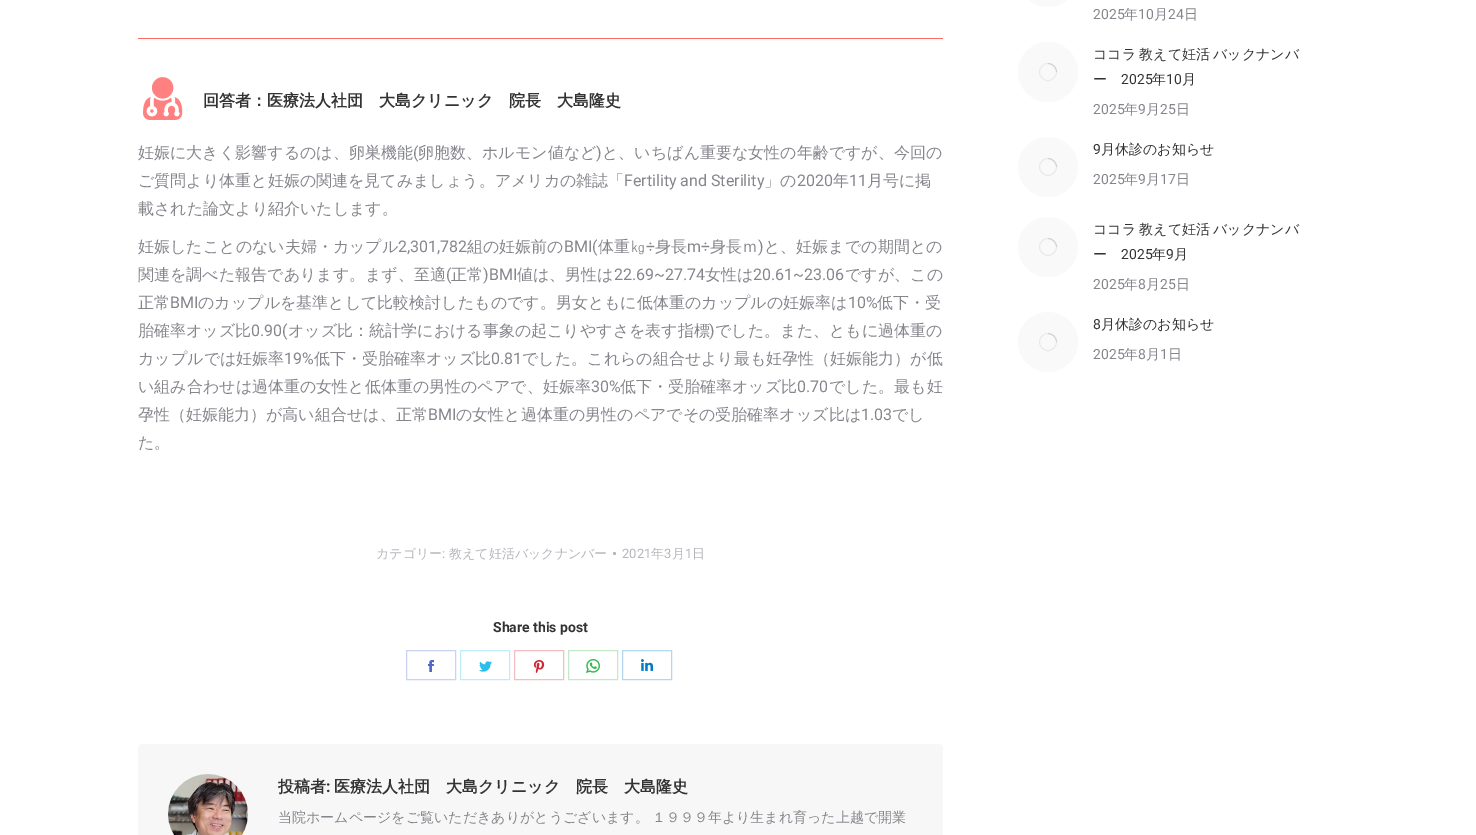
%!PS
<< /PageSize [1476 835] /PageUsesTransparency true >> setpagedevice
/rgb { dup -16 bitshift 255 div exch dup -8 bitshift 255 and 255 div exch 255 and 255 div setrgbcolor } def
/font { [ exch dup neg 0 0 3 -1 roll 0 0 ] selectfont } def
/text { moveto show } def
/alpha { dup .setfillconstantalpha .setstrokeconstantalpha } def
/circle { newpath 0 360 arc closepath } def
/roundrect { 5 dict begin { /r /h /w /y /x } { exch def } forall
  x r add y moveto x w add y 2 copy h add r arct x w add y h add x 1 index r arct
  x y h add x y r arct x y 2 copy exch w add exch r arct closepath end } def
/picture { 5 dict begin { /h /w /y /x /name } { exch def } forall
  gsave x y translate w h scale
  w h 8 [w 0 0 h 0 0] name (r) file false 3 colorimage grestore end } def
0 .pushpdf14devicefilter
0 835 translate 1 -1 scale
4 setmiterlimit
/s1 { /WenQuanYiZenHei-Bold 16 font 16#333333 rgb } def
/s2 { /WenQuanYiZenHei-Medium 16 font 16#85868C rgb } def
/s3 { /Roboto-Regular 16 font 16#85868C rgb } def
/s4 { /WenQuanYiZenHei-Medium 13 font 16#B4B5BB rgb } def
/s5 { /Roboto-Regular 13 font 16#B4B5BB rgb } def
/s6 { /Roboto-Bold 14 font 16#333333 rgb } def
/s7 { /Roboto-Bold 16 font 16#333333 rgb } def
/s8 { /Roboto-Regular 14 font 16#85868C rgb } def
/s9 { /WenQuanYiZenHei-Medium 14 font 16#85868C rgb } def
/s10 { /WenQuanYiZenHei-Medium 14 font 16#333333 rgb } def
/s11 { /Roboto-Regular 14 font 16#333333 rgb } def
16#FFFFFF rgb
0 0 1476 835 rectfill
16#FE6C61 rgb
138 38 805 1 rectfill
(pic1.raw) 143 77 40 43 picture
s1
(回答者：医療法人社団　大島クリニック　院長　大島隆史) 203 106 text
s2
(妊娠に大きく影響するのは、卵巣機能) 138 158 text
s3
(\() 413 158 text
s2
(卵胞数、ホルモン値など) 418 158 text
s3
(\)) 596 158 text
s2
(と、いちばん重要な女性の年齢ですが、今回の) 602 158 text
(ご質問より体重と妊娠の関連を見てみましょう。アメリカの雑誌「) 138 186 text
s3
(Fertility and Sterility) 624 186 text
s2
(」の) 764 186 text
s3
(2020) 797 186 text
s2
(年) 833 186 text
s3
(11) 849 186 text
s2
(月号に掲) 867 186 text
(載された論文より紹介いたします。) 138 214 text
(妊娠したことのない夫婦・カップル) 138 252 text
s3
(2,301,782) 398 252 text
s2
(組の妊娠前の) 467 252 text
s3
(BMI\() 564 252 text
s2
(体重㎏) 598 252 text
s3
(÷) 646 252 text
s2
(身長) 655 252 text
s3
(m÷) 687 252 text
s2
(身長ｍ) 710 252 text
s3
(\)) 758 252 text
s2
(と、妊娠までの期間との) 764 252 text
(関連を調べた報告であります。まず、至適) 138 280 text
s3
(\() 446 280 text
s2
(正常) 451 280 text
s3
(\)BMI) 483 280 text
s2
(値は、男性は) 517 280 text
s3
(22.69~27.74) 614 280 text
s2
(女性は) 705 280 text
s3
(20.61~23.06) 753 280 text
s2
(ですが、この) 845 280 text
(正常) 138 308 text
s3
(BMI) 170 308 text
s2
(のカップルを基準として比較検討したものです。男女ともに低体重のカップルの妊娠率は) 198 308 text
s3
(10%) 848 308 text
s2
(低下・受) 877 308 text
(胎確率オッズ比) 138 336 text
s3
(0.90\() 251 336 text
s2
(オッズ比：統計学における事象の起こりやすさを表す指標) 288 336 text
s3
(\)) 709 336 text
s2
(でした。また、ともに過体重の) 715 336 text
(カップルでは妊娠率) 138 364 text
s3
(19%) 284 364 text
s2
(低下・受胎確率オッズ比) 314 364 text
s3
(0.81) 491 364 text
s2
(でした。これらの組合せより最も妊孕性（妊娠能力）が低) 522 364 text
(い組み合わせは過体重の女性と低体重の男性のペアで、妊娠率) 138 392 text
s3
(30%) 591 392 text
s2
(低下・受胎確率オッズ比) 620 392 text
s3
(0.70) 797 392 text
s2
(でした。最も妊) 829 392 text
(孕性（妊娠能力）が高い組合せは、正常) 138 420 text
s3
(BMI) 428 420 text
s2
(の女性と過体重の男性のペアでその受胎確率オッズ比は) 456 420 text
s3
(1.03) 861 420 text
s2
(でし) 892 420 text
(た。) 138 448 text
s4
(カテゴリー) 376 558 text
s5
(:) 442 558 text
s4
(教えて妊活バックナンバー) 449 558 text
614.5 553.5 1.5 circle fill
s5
(2021) 622 558 text
s4
(年) 651 558 text
s5
(3) 664 558 text
s4
(月) 672 558 text
s5
(1) 685 558 text
s4
(日) 692 558 text
s6
(Share this post) 493 632 text
16#C9D2EE rgb
406.5 650.5 49 29 rectstroke
(pic2.raw) 428 660 6 12 picture
16#BFECF9 rgb
460.5 650.5 49 29 rectstroke
(pic3.raw) 479 661 13 11 picture
16#F1BFC2 rgb
514.5 650.5 49 29 rectstroke
(pic4.raw) 533 660 12 13 picture
16#C3E9CA rgb
568.5 650.5 49 29 rectstroke
(pic5.raw) 586 659 14 14 picture
16#B3D7EE rgb
622.5 650.5 49 29 rectstroke
(pic6.raw) 641 659 12 12 picture
16#F7F7F7 rgb
138 744 805 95 4 roundrect fill
(pic7.raw) 168 774 80 61 picture
s1
(投稿者) 278 792 text
s7
(:) 326 792 text
s1
(医療法人社団　大島クリニック　院長　大島隆史) 334 792 text
/WenQuanYiZenHei-Medium 14 font
16#85868C rgb
278 822 moveto -1 0 32 (当院ホームページをご覧いただきありがとうございます。 １９９９年より生まれ育った上越で開業) widthshow
16#F9F9F9 rgb
1018 -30 60 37 30 roundrect fill
s8
(2025) 1093 19 text
s9
(年) 1124 19 text
s8
(10) 1138 19 text
s9
(月) 1154 19 text
s8
(24) 1168 19 text
s9
(日) 1184 19 text
16#F9F9F9 rgb
1048 72 30 circle fill
16#E9E9EA rgb
0.9 setlinewidth
1048 72 8.5 circle stroke
0.25 alpha
16#85868C rgb
1056.5 72 moveto 1056.5 67.5 1052.5 63.5 1048 63.5 curveto stroke
1 alpha
16#333333 rgb
1093 59 moveto -1 0 32 (ココラ 教えて妊活 バックナンバ) widthshow
(ー) 1093 84 text
s11
(2025) 1121 84 text
s10
(年) 1152 84 text
s11
(10) 1166 84 text
s10
(月) 1182 84 text
s8
(2025) 1093 114 text
s9
(年) 1124 114 text
s8
(9) 1138 114 text
s9
(月) 1146 114 text
s8
(25) 1160 114 text
s9
(日) 1176 114 text
16#F9F9F9 rgb
1048 167 30 circle fill
16#E9E9EA rgb
1048 167 8.5 circle stroke
0.25 alpha
16#85868C rgb
1056.5 167 moveto 1056.5 162.5 1052.5 158.5 1048 158.5 curveto stroke
1 alpha
s11
(9) 1093 154 text
s10
(月休診のお知らせ) 1101 154 text
s8
(2025) 1093 184 text
s9
(年) 1124 184 text
s8
(9) 1138 184 text
s9
(月) 1146 184 text
s8
(17) 1160 184 text
s9
(日) 1176 184 text
16#F9F9F9 rgb
1048 247 30 circle fill
16#E9E9EA rgb
1048 247 8.5 circle stroke
0.25 alpha
16#85868C rgb
1056.5 247 moveto 1056.5 242.5 1052.5 238.5 1048 238.5 curveto stroke
1 alpha
16#333333 rgb
1093 234 moveto -1 0 32 (ココラ 教えて妊活 バックナンバ) widthshow
(ー) 1093 259 text
s11
(2025) 1121 259 text
s10
(年) 1152 259 text
s11
(9) 1166 259 text
s10
(月) 1174 259 text
s8
(2025) 1093 289 text
s9
(年) 1124 289 text
s8
(8) 1138 289 text
s9
(月) 1146 289 text
s8
(25) 1160 289 text
s9
(日) 1176 289 text
16#F9F9F9 rgb
1048 342 30 circle fill
16#E9E9EA rgb
1048 342 8.5 circle stroke
0.25 alpha
16#85868C rgb
1056.5 342 moveto 1056.5 337.5 1052.5 333.5 1048 333.5 curveto stroke
1 alpha
s11
(8) 1093 329 text
s10
(月休診のお知らせ) 1101 329 text
s8
(2025) 1093 359 text
s9
(年) 1124 359 text
s8
(8) 1138 359 text
s9
(月) 1146 359 text
s8
(1) 1160 359 text
s9
(日) 1168 359 text
.poppdf14devicefilter showpage
